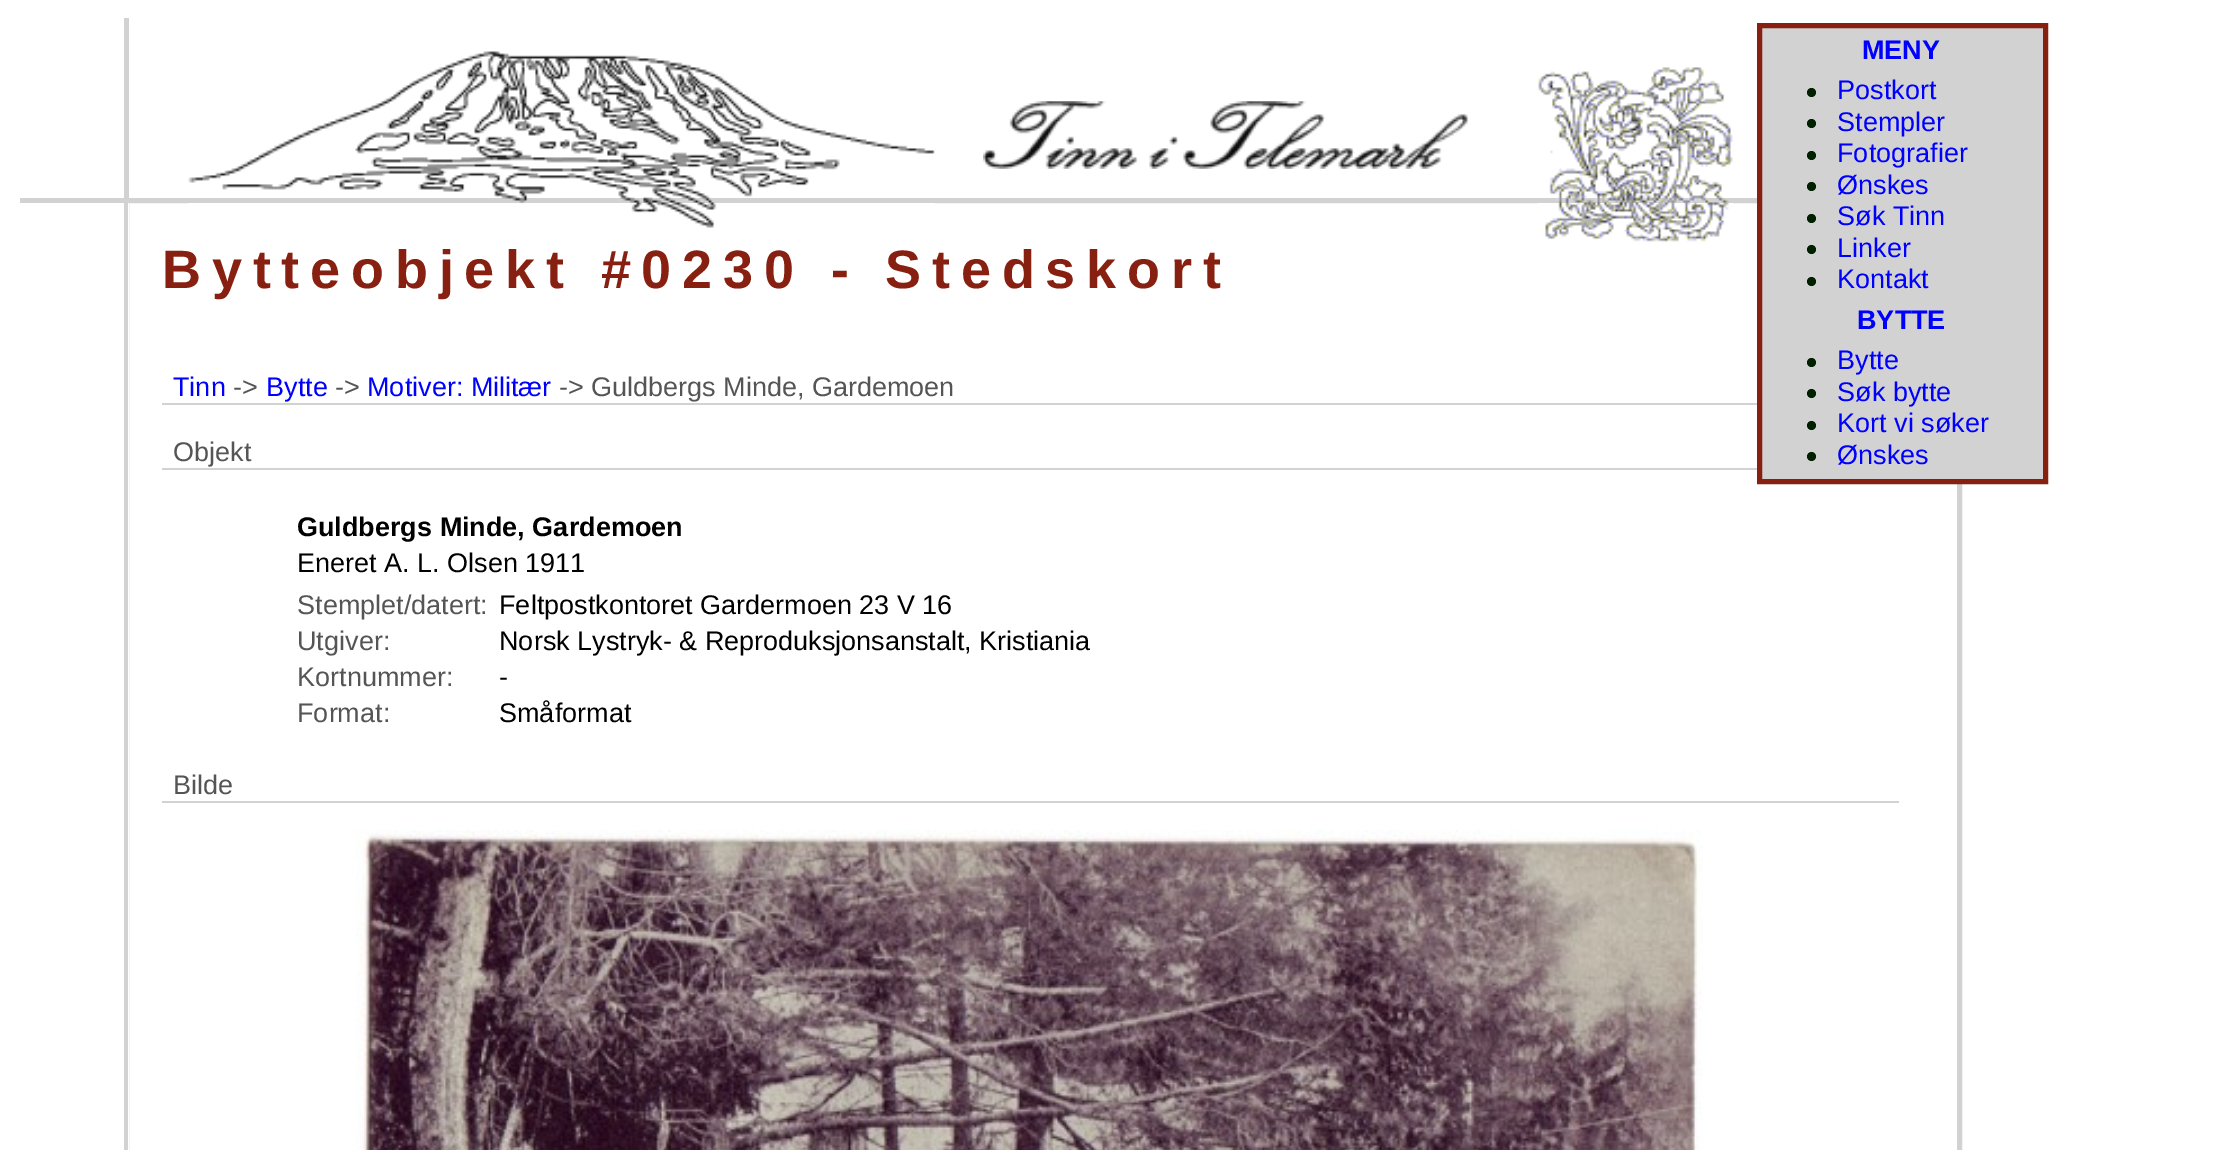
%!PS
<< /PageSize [2217 1150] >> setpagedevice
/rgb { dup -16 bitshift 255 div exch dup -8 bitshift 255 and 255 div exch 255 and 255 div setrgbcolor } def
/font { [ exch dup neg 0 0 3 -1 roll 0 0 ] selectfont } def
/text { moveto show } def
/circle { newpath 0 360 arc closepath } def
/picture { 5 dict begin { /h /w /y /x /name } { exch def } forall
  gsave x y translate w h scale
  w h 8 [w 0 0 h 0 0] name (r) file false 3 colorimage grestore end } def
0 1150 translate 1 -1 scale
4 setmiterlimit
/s1 { /LiberationSans-Bold 27 font 16#0000FF rgb } def
/s2 { /LiberationSans-Regular 27 font 16#0000FF rgb } def
/s3 { /LiberationSans-Regular 27 font 16#555555 rgb } def
/s4 { /LiberationSans-Bold 27 font 16#000000 rgb } def
/s5 { /LiberationSans-Regular 27 font 16#000000 rgb } def
16#FFFFFF rgb
0 0 2217 1150 rectfill
16#D2D2D2 rgb
5 setlinewidth
126.5 200.5 1833 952 rectstroke
124 18 5 185 rectfill
20 198 108 5 rectfill
(pic1.raw) 188 51 747 177 picture
(pic2.raw) 983 101 486 68 picture
(pic3.raw) 1538 67 195 175 picture
1759.5 25.5 moveto 2045.5 25.5 lineto 2045.5 481.5 lineto 1759.5 481.5 lineto closepath gsave fill grestore
16#882011 rgb
stroke
s1
(MENY) 1862 59 text
16#012000 rgb
1811.5 92.5 4.5 circle fill
s2
(Postkort) 1837 99 text
16#012000 rgb
1811.5 123.5 4.5 circle fill
s2
(Stempler) 1837 131 text
16#012000 rgb
1811.5 155.5 4.5 circle fill
s2
(Fotografier) 1837 162 text
16#012000 rgb
1811.5 186.5 4.5 circle fill
s2
(Ønskes) 1837 194 text
16#012000 rgb
1811.5 218.5 4.5 circle fill
s2
(Søk Tinn) 1837 225 text
16#012000 rgb
1811.5 249.5 4.5 circle fill
s2
(Linker) 1837 257 text
16#012000 rgb
1811.5 281.5 4.5 circle fill
s2
(Kontakt) 1837 288 text
s1
(BYTTE) 1857 329 text
16#012000 rgb
1811.5 362.5 4.5 circle fill
s2
(Bytte) 1837 369 text
16#012000 rgb
1811.5 393.5 4.5 circle fill
s2
(Søk bytte) 1837 401 text
16#012000 rgb
1811.5 425.5 4.5 circle fill
s2
(Kort vi søker) 1837 432 text
16#012000 rgb
1811.5 456.5 4.5 circle fill
s2
(Ønskes) 1837 464 text
16#D2D2D2 rgb
162 403 1595 2 rectfill
s2
(Tinn) 173 396 text
s3
(->) 233 396 text
s2
(Bytte) 266 396 text
s3
(->) 335 396 text
s2
(Motiver: Militær) 367 396 text
s3
(-> Guldbergs Minde, Gardemoen) 559 396 text
16#D2D2D2 rgb
162 468 1595 2 rectfill
s3
(Objekt) 173 461 text
s4
(Guldbergs Minde, Gardemoen) 297 536 text
s5
(Eneret A. L. Olsen 1911) 297 572 text
s3
(Stemplet/datert:) 297 614 text
s5
(Feltpostkontoret Gardermoen 23 V 16) 499 614 text
s3
(Utgiver:) 297 650 text
s5
(Norsk Lystryk- & Reproduksjonsanstalt, Kristiania) 499 650 text
s3
(Kortnummer:) 297 686 text
s5
(-) 499 686 text
s3
(Format:) 297 722 text
s5
(Småformat) 499 722 text
16#D2D2D2 rgb
162 801 1737 2 rectfill
s3
(Bilde) 173 794 text
(pic4.raw) 356 830 1347 320 picture
16#FFFFFF rgb
128 203 1 947 rectfill
/LiberationSans-Bold 54 font
16#882011 rgb
162 288 moveto 10.8 0 (Bytteobjekt #0230 - Stedskort) ashow
showpage
